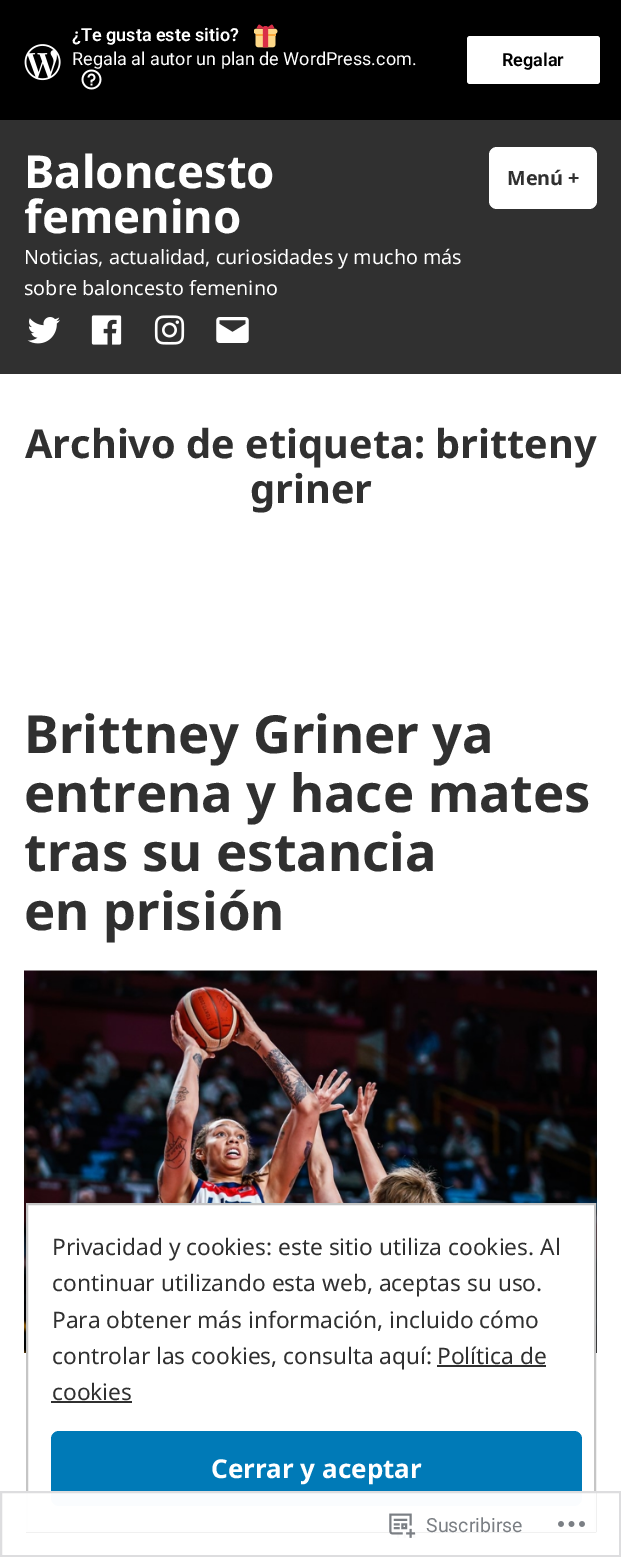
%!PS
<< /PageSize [621 1557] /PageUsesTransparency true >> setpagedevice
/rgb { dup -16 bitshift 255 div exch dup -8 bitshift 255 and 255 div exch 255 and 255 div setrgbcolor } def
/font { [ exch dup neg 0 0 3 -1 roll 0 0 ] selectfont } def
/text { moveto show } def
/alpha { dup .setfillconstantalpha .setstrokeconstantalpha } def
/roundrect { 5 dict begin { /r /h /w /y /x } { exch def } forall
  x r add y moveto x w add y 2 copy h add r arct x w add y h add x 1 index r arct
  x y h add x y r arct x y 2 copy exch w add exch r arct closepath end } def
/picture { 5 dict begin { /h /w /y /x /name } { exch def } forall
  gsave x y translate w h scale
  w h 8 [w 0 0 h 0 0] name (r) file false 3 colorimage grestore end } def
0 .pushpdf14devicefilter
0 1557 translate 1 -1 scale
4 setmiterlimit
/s1 { /Roboto-SemiBold 18 font 16#FFFFFF rgb } def
/s2 { /Roboto-Regular 18 font 16#FFFFFF rgb } def
/s3 { /Roboto-SemiBold 18 font 16#000000 rgb } def
/s4 { /NotoSans-Bold 45.5 font 16#FFFFFF rgb } def
/s5 { /NotoSans-Bold 19.75 font 16#303030 rgb } def
/s6 { /NotoSans-Regular 19.75 font 16#FFFFFF rgb } def
/s7 { /NotoSans-Bold 39.7 font 16#303030 rgb } def
/s8 { /NotoSans-Bold 52.5 font 16#303030 rgb } def
/s9 { /NotoSans-Regular 22.7 font 16#303030 rgb } def
/s10 { /NotoSans-Bold 26 font 16#FFFFFF rgb } def
/s11 { /Roboto-Regular 19.5 font 16#7B7F84 rgb } def
16#FFFFFF rgb
0 0 621 1557 rectfill
16#000000 rgb
0 0 621 120 rectfill
(pic1.raw) 24 44 37 37 picture
s1
(¿Te gusta este sitio?) 72 41 text
(pic2.raw) 254 24 24 24 picture
s2
(Regala al autor un plan de WordPress.com.) 72 65 text
(pic3.raw) 81 69 21 21 picture
467 36 133 48 3 roundrect fill
s3
(Regalar) 502 66 text
16#303030 rgb
0 120 621 254 rectfill
s4
(Baloncesto) 24 188 text
(femenino) 24 233 text
489 147 108 62 8 roundrect fill
s5
(Menú +) 507 185 text
s6
(Noticias, actualidad, curiosidades y mucho más) 24 264 text
(sobre baloncesto femenino) 24 295 text
(pic4.raw) 27 317 33 27 picture
(pic5.raw) 91 315 31 30 picture
(pic6.raw) 154 315 31 30 picture
(pic7.raw) 216 317 33 26 picture
s7
(Archivo de etiqueta: britteny) 25 458 text
(griner) 250 503 text
s8
(Brittney Griner ya) 24 753 text
(entrena y hace mates) 24 812 text
(tras su estancia) 24 871 text
(en prisión) 24 930 text
(pic8.raw) 24 970 573 383 picture
16#FFFFFF rgb
28 1205 566 148 rectfill
16#C5C5C5 rgb
2 setlinewidth
27 1204 568 327 rectstroke
s9
(Privacidad y cookies: este sitio utiliza cookies. Al) 52 1255 text
(continuar utilizando esta web, aceptas su uso.) 52 1291 text
(Para obtener más información, incluido cómo) 52 1328 text
(controlar las cookies, consulta aquí:) 52 1364 text
(Política de) 437 1364 text
437 1365 109 2 rectfill
(cookies) 52 1400 text
51 1401 81 2 rectfill
16#007AB7 rgb
51 1431 531 75 8 roundrect fill
s10
(Cerrar y aceptar) 211 1478 text
0.98 alpha
26 1491 570 41 rectfill
16#DCDCDE rgb
1 1492 619 64 rectstroke
1 alpha
(pic9.raw) 389 1513 27 25 picture
s11
(Suscribirse) 426 1532 text
(pic10.raw) 558 1521 27 6 picture
.poppdf14devicefilter showpage
